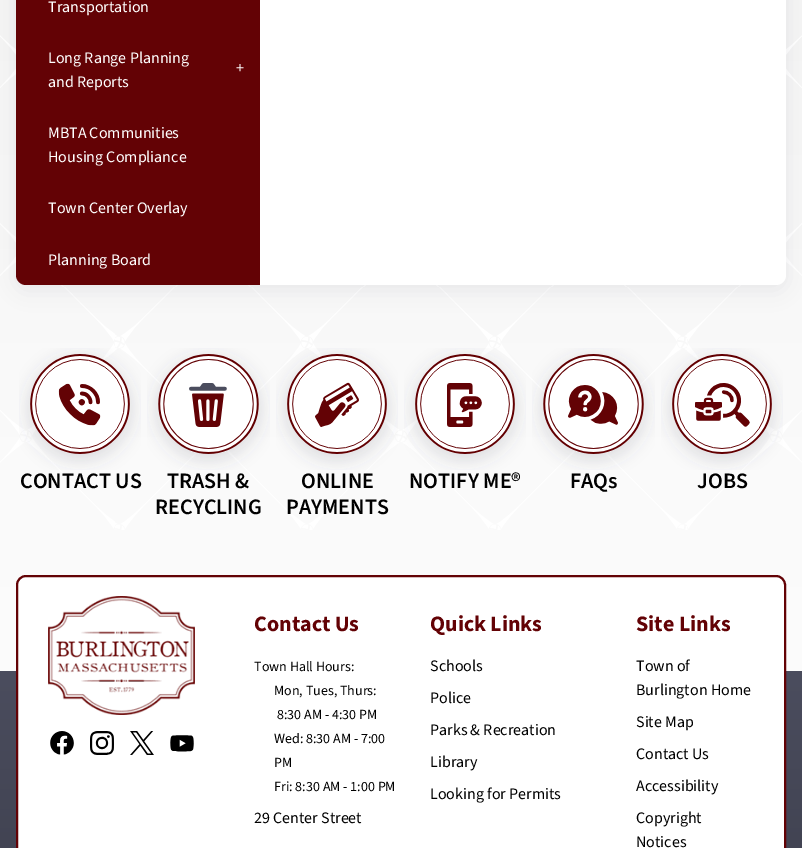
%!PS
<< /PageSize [802 848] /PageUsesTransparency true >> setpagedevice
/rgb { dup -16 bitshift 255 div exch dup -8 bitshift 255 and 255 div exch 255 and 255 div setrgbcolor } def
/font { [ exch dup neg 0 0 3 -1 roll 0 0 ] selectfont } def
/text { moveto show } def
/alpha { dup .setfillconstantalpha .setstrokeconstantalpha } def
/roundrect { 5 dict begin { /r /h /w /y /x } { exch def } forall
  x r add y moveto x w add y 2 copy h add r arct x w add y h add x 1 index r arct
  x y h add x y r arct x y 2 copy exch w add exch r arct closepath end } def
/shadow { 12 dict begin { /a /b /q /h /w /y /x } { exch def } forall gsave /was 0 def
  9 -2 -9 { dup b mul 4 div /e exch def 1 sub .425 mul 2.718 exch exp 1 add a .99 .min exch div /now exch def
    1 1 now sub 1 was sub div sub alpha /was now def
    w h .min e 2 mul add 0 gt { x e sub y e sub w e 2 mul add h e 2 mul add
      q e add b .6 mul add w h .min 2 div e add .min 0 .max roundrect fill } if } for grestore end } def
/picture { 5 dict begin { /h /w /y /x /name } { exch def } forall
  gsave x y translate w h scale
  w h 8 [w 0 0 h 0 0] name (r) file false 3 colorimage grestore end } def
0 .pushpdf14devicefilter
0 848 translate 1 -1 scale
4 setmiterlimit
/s1 { /SourceSans3-Regular 16 font 16#FFFFFF rgb } def
/s2 { /SourceSans3-SemiBold 22 font 16#000000 rgb } def
/s3 { /SourceSans3-Bold 22 font 16#630205 rgb } def
/s4 { /SourceSans3-Regular 14 font 16#000000 rgb } def
/s5 { /SourceSans3-Regular 16 font 16#000000 rgb } def
16#FFFFFF rgb
0 0 802 848 rectfill
gsave 0 0 moveto 802 0 lineto 802 671 lineto 0 671 lineto closepath clip newpath
<< /ShadingType 2 /ColorSpace /DeviceRGB /Coords [401 -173 401 671] /Extend [true true] /Function << /FunctionType 2 /Domain [0 1] /C0 [0.953 0.953 0.953] /C1 [0.988 0.988 0.988] /N 1 >> >> shfill grestore
(pic1.raw) 0 35 802 495 picture
16#4B4D5E rgb
16 -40 770 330 10 10 0.1 shadow
16#FFFFFF rgb
16 -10 770 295 10 roundrect fill
16#630205 rgb
26 -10 moveto 260 -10 lineto 260 285 lineto 26 285 lineto 20.5 285 16 280.5 16 275 curveto 16 0 lineto 16 -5.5 20.5 -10 26 -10 curveto closepath fill
s1
(Transportation) 48 12 text
(Long Range Planning) 48 63 text
(and Reports) 48 87 text
(+) 236 73 text
(MBTA Communities) 48 138 text
(Housing Compliance) 48 162 text
(Town Center Overlay) 48 213 text
(Planning Board) 48 265 text
(pic2.raw) 19 348 122 122 picture
(pic3.raw) 58 383 43 43 picture
s2
(CONTACT US) 20 488 text
(pic4.raw) 147 348 123 122 picture
(pic5.raw) 189 383 38 44 picture
(TRASH &) 167 488 text
(RECYCLING) 155 514 text
(pic6.raw) 276 348 122 122 picture
(pic7.raw) 315 382 44 45 picture
(ONLINE) 301 488 text
(PAYMENTS) 286 514 text
(pic8.raw) 404 348 122 122 picture
(pic9.raw) 447 383 35 44 picture
(NOTIFY ME®) 409 488 text
(pic10.raw) 532 348 123 122 picture
(pic11.raw) 568 385 50 40 picture
(FAQs) 570 488 text
(pic12.raw) 661 348 122 122 picture
(pic13.raw) 695 383 55 44 picture
(JOBS) 697 488 text
gsave 0 671 moveto 802 671 lineto 802 848 lineto 0 848 lineto closepath clip newpath
<< /ShadingType 2 /ColorSpace /DeviceRGB /Coords [401 671 401 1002] /Extend [true true] /Function << /FunctionType 2 /Domain [0 1] /C0 [0.294 0.302 0.369] /C1 [0.227 0.235 0.29] /N 1 >> >> shfill grestore
16#FFFFFF rgb
17 576 768 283 9 roundrect gsave fill grestore
16#630205 rgb
2 setlinewidth
stroke
(pic14.raw) 48 596 147 119 picture
(pic15.raw) 50 731 24 24 picture
(pic16.raw) 90 731 24 24 picture
(pic17.raw) 130 731 24 24 picture
(pic18.raw) 170 735 24 17 picture
s3
(Contact Us) 254 631 text
s4
(Town Hall Hours:) 254 671 text
(Mon, Tues, Thurs:) 274 695 text
(8:30 AM - 4:30 PM) 277 719 text
(Wed: 8:30 AM - 7:00) 274 743 text
(PM) 274 767 text
(Fri: 8:30 AM - 1:00 PM) 274 791 text
s5
(29 Center Street) 254 823 text
s3
(Quick Links) 430 631 text
s5
(Schools) 430 671 text
(Police) 430 703 text
(Parks & Recreation) 430 735 text
(Library) 430 767 text
(Looking for Permits) 430 799 text
s3
(Site Links) 636 631 text
s5
(Town of) 636 671 text
(Burlington Home) 636 695 text
(Site Map) 636 727 text
(Contact Us) 636 759 text
(Accessibility) 636 791 text
(Copyright) 636 823 text
(Notices) 636 847 text
.poppdf14devicefilter showpage
